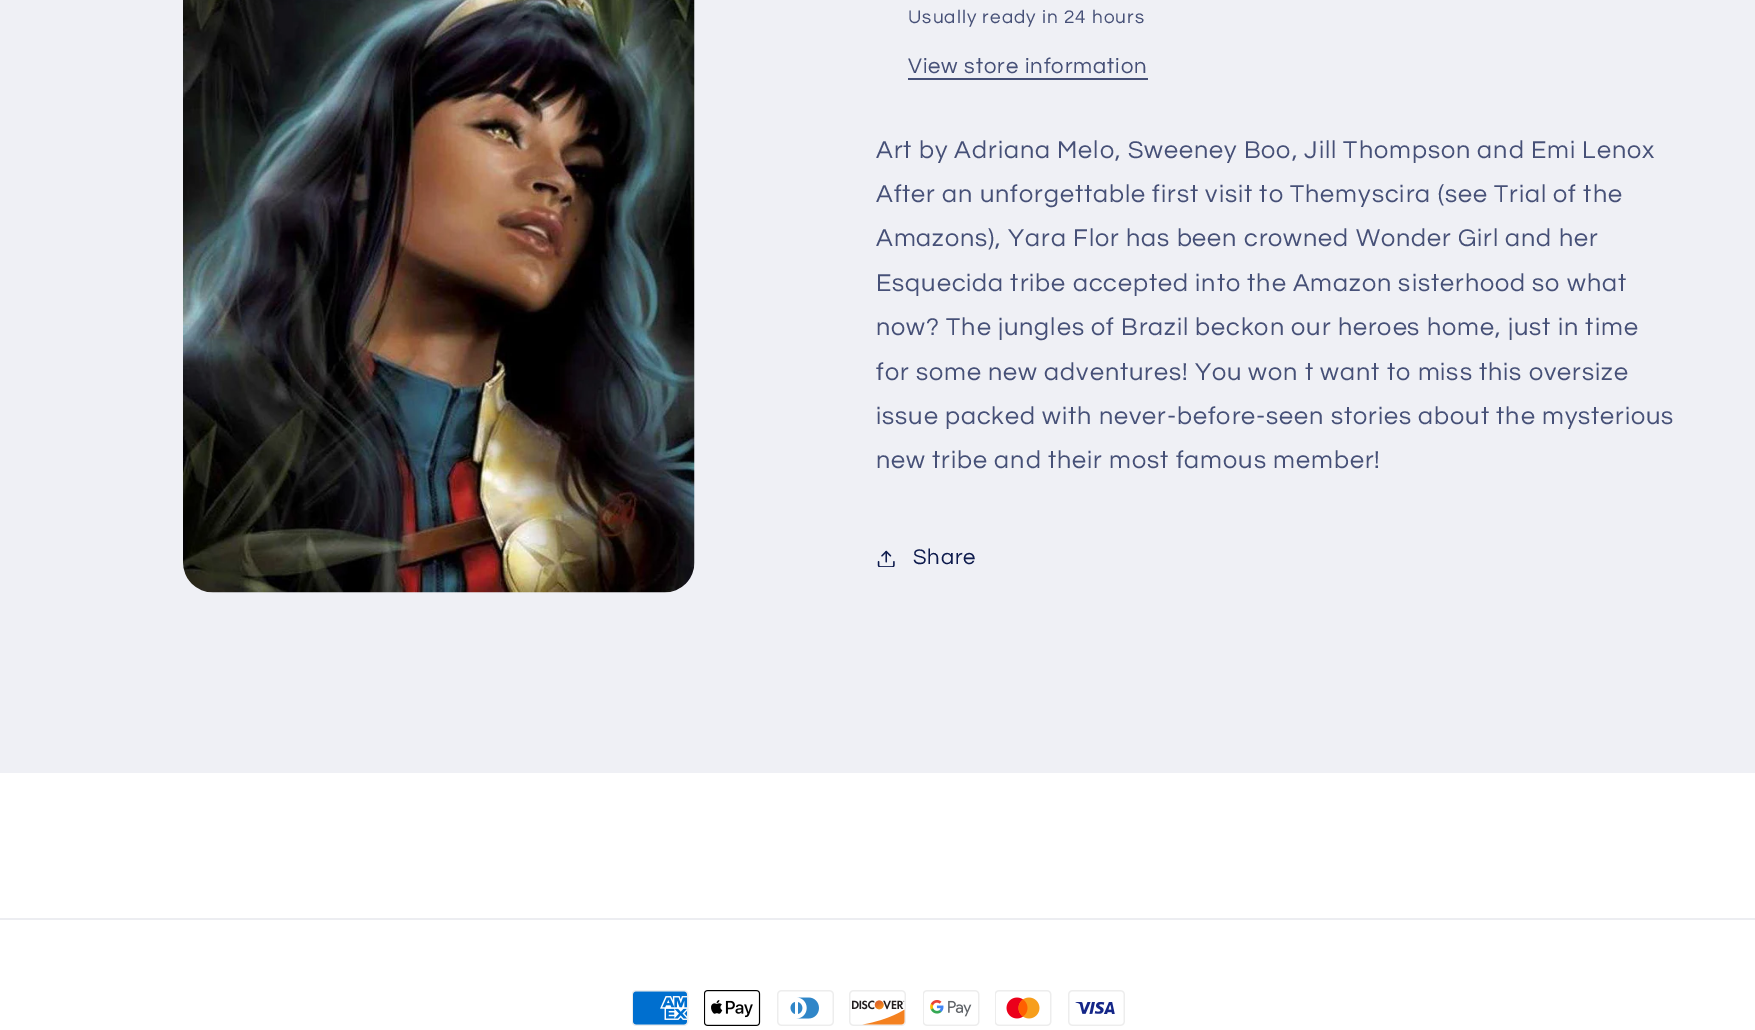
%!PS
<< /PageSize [1755 1030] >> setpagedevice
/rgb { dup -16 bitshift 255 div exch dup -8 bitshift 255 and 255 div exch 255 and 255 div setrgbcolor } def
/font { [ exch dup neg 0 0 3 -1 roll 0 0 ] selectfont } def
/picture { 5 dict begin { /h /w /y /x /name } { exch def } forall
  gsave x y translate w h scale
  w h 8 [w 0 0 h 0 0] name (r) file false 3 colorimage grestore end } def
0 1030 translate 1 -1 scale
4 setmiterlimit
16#EFF0F5 rgb
0 0 1755 1030 rectfill
(pic1.raw) 183 0 512 593 picture
/Questrial-Regular 18.9 font
16#465077 rgb
908 23 moveto 1.1 0 (Usually ready in 24 hours) ashow
/Questrial-Regular 22 font
908 73 moveto 0.95 0 (View store information) ashow
908 78 240 2 rectfill
/Questrial-Regular 25.2 font
876 158 moveto 0.95 0 (Art by Adriana Melo, Sweeney Boo, Jill Thompson and Emi Lenox) ashow
876 202 moveto 0.95 0 (After an unforgettable first visit to Themyscira \(see Trial of the) ashow
876 246 moveto 0.95 0 (Amazons\), Yara Flor has been crowned Wonder Girl and her) ashow
876 291 moveto 0.95 0 (Esquecida tribe accepted into the Amazon sisterhood so what) ashow
876 335 moveto 0.95 0 (now? The jungles of Brazil beckon our heroes home, just in time) ashow
876 380 moveto 0.95 0 (for some new adventures! You won) ashow
1305 380 moveto 0.95 0 (t want to miss this oversize) ashow
876 424 moveto 0.95 0 (issue packed with never-before-seen stories about the mysterious) ashow
876 468 moveto 0.95 0 (new tribe and their most famous member!) ashow
(pic2.raw) 877 550 18 17 picture
/Questrial-Regular 22 font
16#0E1B4D rgb
913 564 moveto 0.95 0 (Share) ashow
16#FFFFFF rgb
0 773 1755 257 rectfill
16#ECEDF1 rgb
0 918 1755 2 rectfill
(pic3.raw) 632 990 57 36 picture
(pic4.raw) 704 990 57 36 picture
(pic5.raw) 777 990 57 36 picture
(pic6.raw) 849 990 57 36 picture
(pic7.raw) 923 990 57 36 picture
(pic8.raw) 995 990 57 36 picture
(pic9.raw) 1068 990 57 36 picture
showpage
